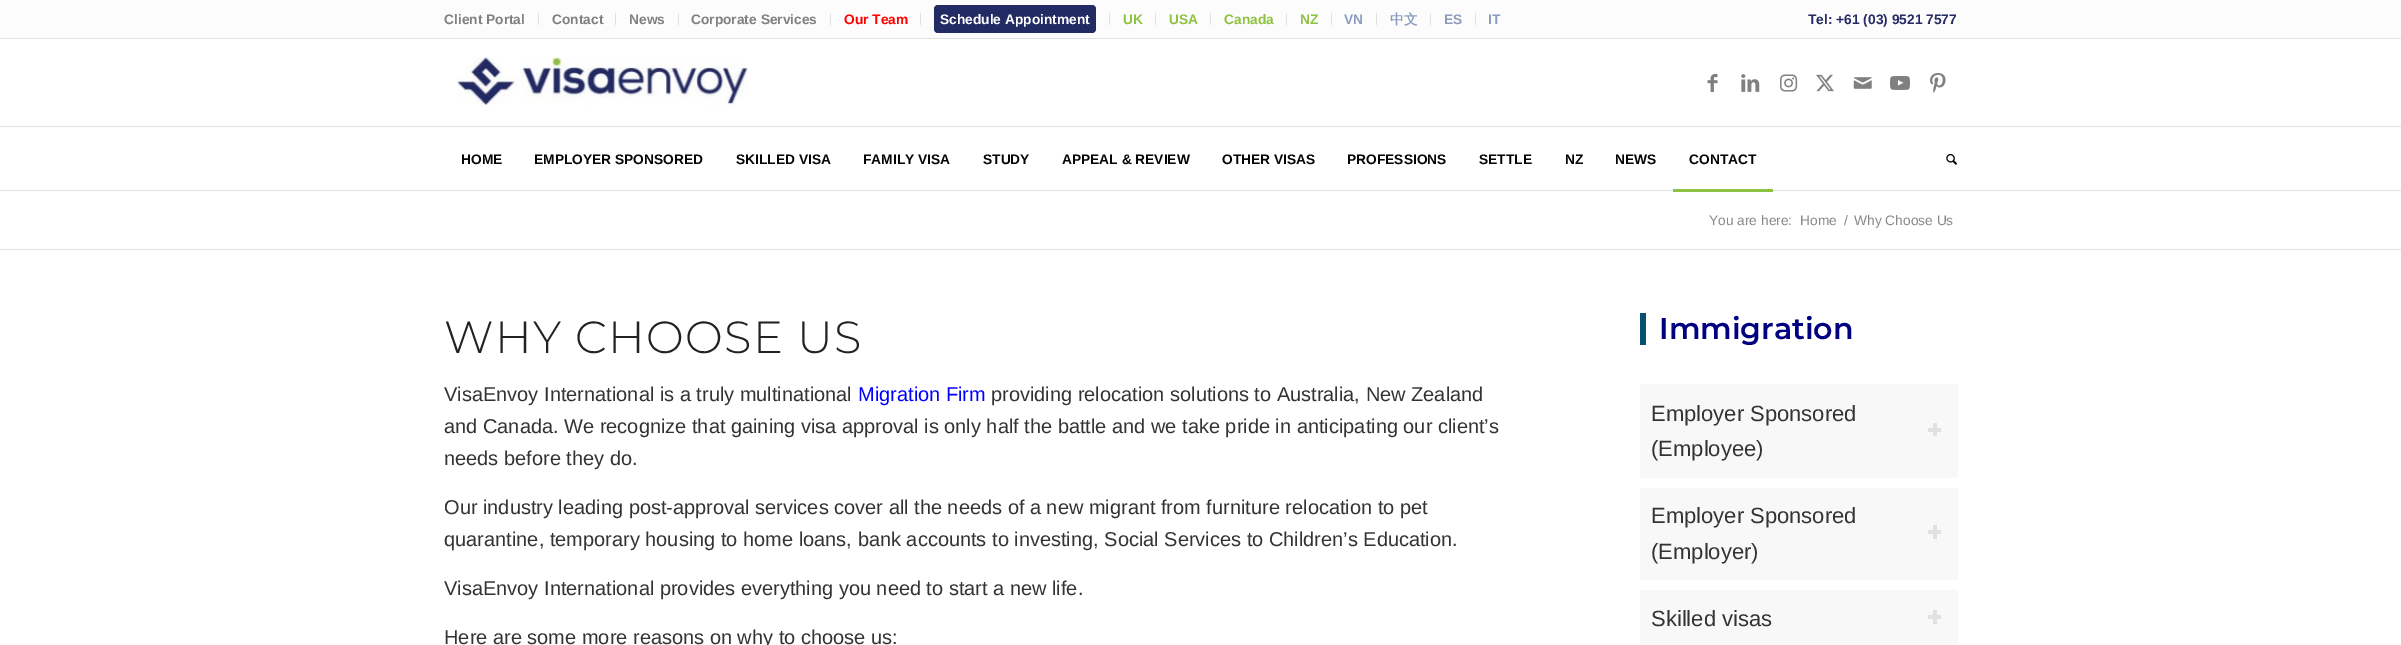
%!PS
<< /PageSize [2401 645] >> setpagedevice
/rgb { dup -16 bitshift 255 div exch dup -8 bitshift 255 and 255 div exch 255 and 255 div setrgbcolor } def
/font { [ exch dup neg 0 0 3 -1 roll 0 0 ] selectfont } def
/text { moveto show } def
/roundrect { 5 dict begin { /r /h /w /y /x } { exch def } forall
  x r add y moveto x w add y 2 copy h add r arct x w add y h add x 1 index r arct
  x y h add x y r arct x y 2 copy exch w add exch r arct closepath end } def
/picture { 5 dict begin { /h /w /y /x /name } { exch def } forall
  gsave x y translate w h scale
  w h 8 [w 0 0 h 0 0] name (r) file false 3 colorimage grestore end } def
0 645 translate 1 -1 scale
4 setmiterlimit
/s1 { /LiberationSans-Bold 13.75 font 16#808080 rgb } def
/s2 { /LiberationSans-Bold 13.75 font 16#FF0000 rgb } def
/s3 { /LiberationSans-Bold 13.75 font 16#FFFFFF rgb } def
/s4 { /LiberationSans-Bold 13.75 font 16#8EC241 rgb } def
/s5 { /LiberationSans-Bold 13.75 font 16#8C9CBE rgb } def
/s6 { /WenQuanYiZenHei-Bold 13.75 font 16#8C9CBE rgb } def
/s7 { /LiberationSans-Bold 13.75 font 16#262B65 rgb } def
/s8 { /LiberationSans-Bold 13.75 font 16#050505 rgb } def
/s9 { /LiberationSans-Regular 13.75 font 16#888888 rgb } def
/s10 { /LiberationSans-Regular 20 font 16#333333 rgb } def
/s11 { /LiberationSans-Regular 20 font 16#0000FF rgb } def
/s12 { /Montserrat-SemiBold 30 font 16#000080 rgb } def
/s13 { /LiberationSans-Regular 22 font 16#333333 rgb } def
16#FFFFFF rgb
0 0 2401 645 rectfill
16#FCFCFC rgb
0 0 2401 38 rectfill
16#E1E1E1 rgb
0 38 2401 1 rectfill
538 13 1 12 rectfill
s1
(Client Portal) 444 24 text
16#E1E1E1 rgb
615 13 1 12 rectfill
s1
(Contact) 552 24 text
16#E1E1E1 rgb
678 13 1 12 rectfill
s1
(News) 629 24 text
16#E1E1E1 rgb
830 13 1 12 rectfill
s1
(Corporate Services) 691 24 text
16#E1E1E1 rgb
920 13 1 12 rectfill
s2
(Our Team) 844 24 text
16#E1E1E1 rgb
1109 13 1 12 rectfill
16#232B65 rgb
934 5 162 28 4 roundrect fill
s3
(Schedule Appointment) 940 24 text
16#E1E1E1 rgb
1155 13 1 12 rectfill
s4
(UK) 1123 24 text
16#E1E1E1 rgb
1210 13 1 12 rectfill
s4
(USA) 1169 24 text
16#E1E1E1 rgb
1286 13 1 12 rectfill
s4
(Canada) 1224 24 text
16#E1E1E1 rgb
1331 13 1 12 rectfill
s4
(NZ) 1300 24 text
16#E1E1E1 rgb
1376 13 1 12 rectfill
s5
(VN) 1344 24 text
16#E1E1E1 rgb
1430 13 1 12 rectfill
s6
(中文) 1390 24 text
16#E1E1E1 rgb
1475 13 1 12 rectfill
s5
(ES) 1444 24 text
(IT) 1488 24 text
s7
(Tel: +61 \(03\) 9521 7577) 1808 24 text
16#E1E1E1 rgb
0 190 2401 1 rectfill
(pic1.raw) 457 57 291 48 picture
(pic2.raw) 1707 74 11 18 picture
(pic3.raw) 1741 74 19 18 picture
(pic4.raw) 1780 74 18 18 picture
(pic5.raw) 1816 74 18 18 picture
(pic6.raw) 1853 77 19 12 picture
(pic7.raw) 1890 76 20 14 picture
(pic8.raw) 1930 73 16 20 picture
0 126 2401 1 rectfill
s8
(HOME) 461 164 text
(EMPLOYER SPONSORED) 534 164 text
(SKILLED VISA) 736 164 text
(FAMILY VISA) 863 164 text
(STUDY) 983 164 text
(APPEAL & REVIEW) 1062 164 text
(OTHER VISAS) 1222 164 text
(PROFESSIONS) 1347 164 text
(SETTLE) 1479 164 text
(NZ) 1565 164 text
(NEWS) 1615 164 text
(CONTACT) 1689 164 text
16#8EC241 rgb
1673 189 100 3 rectfill
(pic9.raw) 1946 153 11 12 picture
s9
(You are here:) 1709 225 text
(Home) 1800 225 text
(/) 1844 225 text
(Why Choose Us) 1854 225 text
16#E1E1E1 rgb
0 249 2401 1 rectfill
/Montserrat-Light 45 font
16#222222 rgb
444 353 moveto 1.25 0 (WHY CHOOSE US) ashow
s10
(VisaEnvoy International is a truly multinational) 444 401 text
s11
(Migration Firm) 858 401 text
s10
(providing relocation solutions to Australia, New Zealand) 991 401 text
(and Canada. We recognize that gaining visa approval is only half the battle and we take pride in anticipating our client’s) 444 433 text
(needs before they do.) 444 465 text
(Our industry leading post-approval services cover all the needs of a new migrant from furniture relocation to pet) 444 514 text
(quarantine, temporary housing to home loans, bank accounts to investing, Social Services to Children’s Education.) 444 546 text
(VisaEnvoy International provides everything you need to start a new life.) 444 595 text
(Here are some more reasons on why to choose us:) 444 644 text
16#084F70 rgb
1640 313 6 32 rectfill
s12
(Immigration) 1659 339 text
16#F8F8F8 rgb
1640 384 318 94 rectfill
s13
(Employer Sponsored) 1651 421 text
16#E1E1E1 rgb
1933 423 4 13 rectfill
1928 428 13 4 rectfill
s13
(\(Employee\)) 1651 456 text
16#F8F8F8 rgb
1640 488 318 92 rectfill
s13
(Employer Sponsored) 1651 523 text
16#E1E1E1 rgb
1933 525 4 14 rectfill
1928 530 13 4 rectfill
s13
(\(Employer\)) 1651 559 text
16#F8F8F8 rgb
1640 590 318 55 rectfill
s13
(Skilled visas) 1651 626 text
16#E1E1E1 rgb
1933 610 4 14 rectfill
1928 615 13 4 rectfill
showpage
